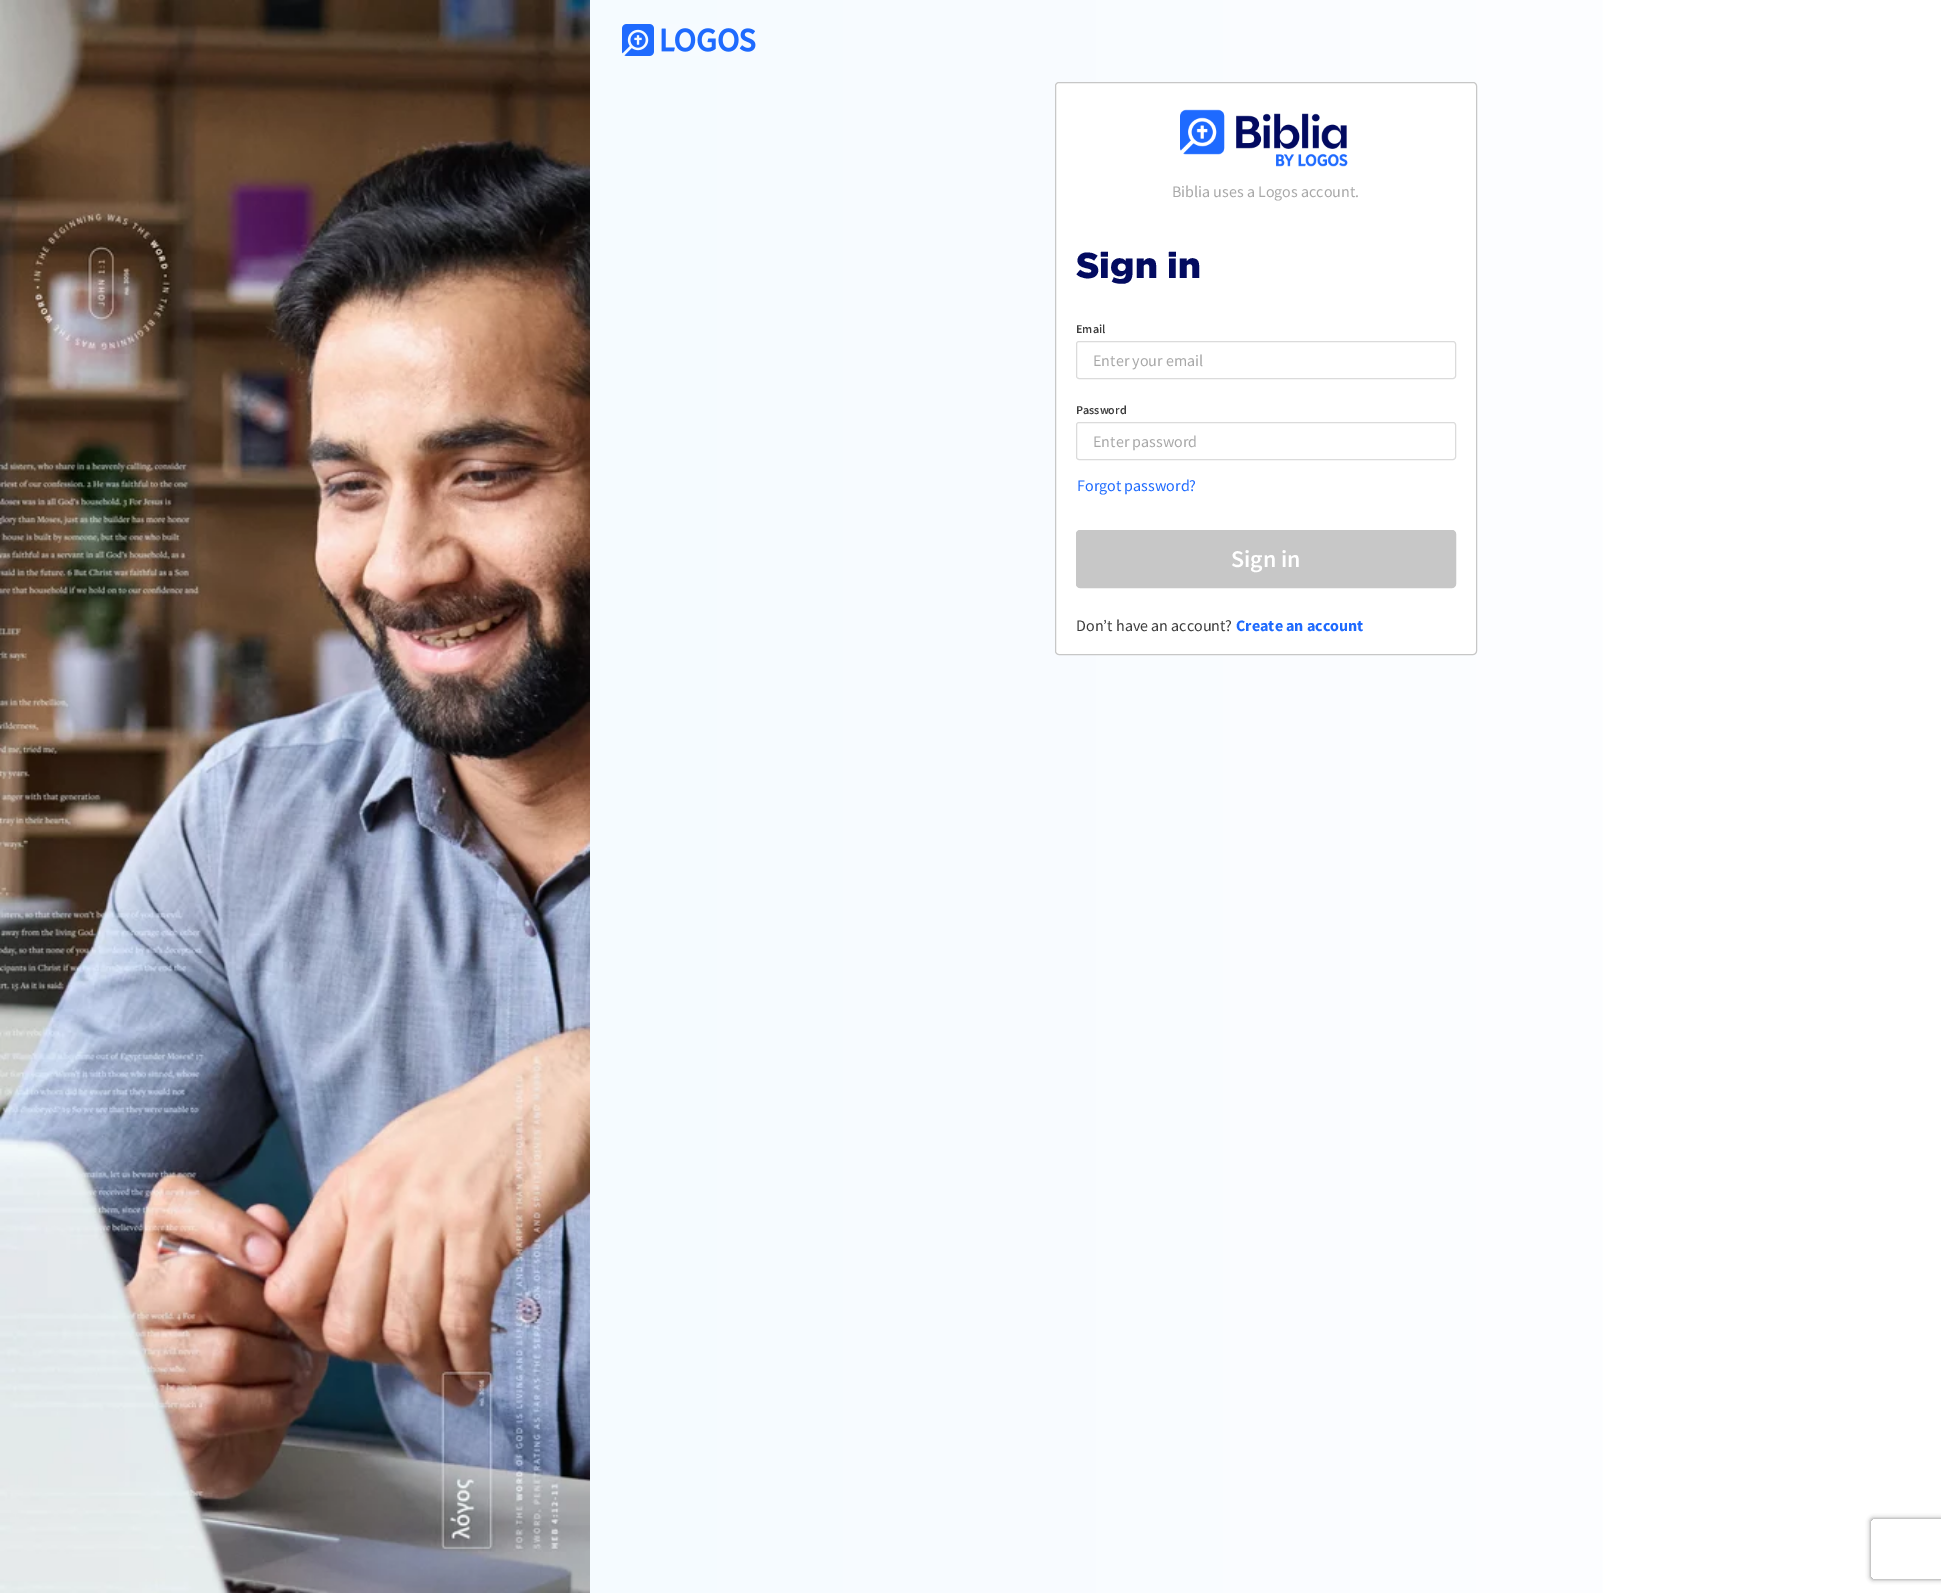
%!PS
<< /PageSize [1941 1593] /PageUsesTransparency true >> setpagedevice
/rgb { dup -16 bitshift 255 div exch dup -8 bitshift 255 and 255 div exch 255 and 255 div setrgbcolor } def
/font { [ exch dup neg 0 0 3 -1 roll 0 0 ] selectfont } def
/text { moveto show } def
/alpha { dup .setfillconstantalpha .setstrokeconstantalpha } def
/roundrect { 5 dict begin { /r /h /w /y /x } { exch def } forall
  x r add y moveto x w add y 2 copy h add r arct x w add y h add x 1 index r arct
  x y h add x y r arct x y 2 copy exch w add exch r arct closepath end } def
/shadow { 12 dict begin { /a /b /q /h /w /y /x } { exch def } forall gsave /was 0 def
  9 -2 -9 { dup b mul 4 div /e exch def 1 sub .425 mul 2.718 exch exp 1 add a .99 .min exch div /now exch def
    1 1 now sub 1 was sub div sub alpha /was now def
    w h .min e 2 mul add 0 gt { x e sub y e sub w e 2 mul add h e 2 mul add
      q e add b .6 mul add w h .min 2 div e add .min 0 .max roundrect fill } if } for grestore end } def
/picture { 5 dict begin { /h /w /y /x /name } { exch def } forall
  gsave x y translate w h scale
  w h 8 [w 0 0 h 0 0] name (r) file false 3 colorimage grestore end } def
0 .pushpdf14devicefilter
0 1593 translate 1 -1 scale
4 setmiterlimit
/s1 { /SourceSansPro-Regular 16 font 16#A8A8A8 rgb } def
/s2 { /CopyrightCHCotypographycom-Regular 36 font 16#030B60 rgb } def
/s3 { /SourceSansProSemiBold-SemiBold 12 font 16#3D3D3D rgb } def
/s4 { /SourceSansPro-Regular 16 font 16#1E6AFE rgb } def
/s5 { /SourceSansProSemiBold-SemiBold 24 font 16#FFFFFF rgb } def
/s6 { /SourceSansPro-Regular 16 font 16#3D3D3D rgb } def
/s7 { /SourceSansPro-Bold 16 font 16#1E6AFE rgb } def
16#FFFFFF rgb
0 0 1941 1593 rectfill
(pic1.raw) 0 0 590 1593 picture
gsave 590 0 moveto 1603 0 lineto 1603 1593 lineto 590 1593 lineto closepath clip newpath
<< /ShadingType 2 /ColorSpace /DeviceRGB /Coords [590 797 1941 797] /Extend [true true] /Function << /FunctionType 2 /Domain [0 1] /C0 [0.961 0.984 1] /C1 [1 1 1] /N 1 >> >> shfill grestore
(pic2.raw) 622 24 134 32 picture
1055.5 82.5 421 572 3.5 roundrect gsave fill grestore
16#C7C7C7 rgb
stroke
(pic3.raw) 1180 109 168 58 picture
s1
(Biblia uses a Logos account.) 1172 197 text
s2
(Sign in) 1076 278 text
s3
(Email) 1076 333 text
16#DBDBDB rgb
1076.5 341.5 379 37 2.5 roundrect stroke
s1
(Enter your email) 1093 366 text
s3
(Password) 1076 414 text
16#DBDBDB rgb
1076.5 422.5 379 37 2.5 roundrect stroke
s1
(Enter password) 1093 447 text
s4
(Forgot password?) 1077 491 text
16#C7C7C7 rgb
1076.5 530.5 379 57 3.5 roundrect gsave fill grestore
stroke
s5
(Sign in) 1231 567 text
s6
(Don’t have an account?) 1076 631 text
s7
(Create an account) 1236 631 text
gsave
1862 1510 moveto 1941 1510 lineto 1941 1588 lineto 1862 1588 lineto closepath 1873 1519 moveto 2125 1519 lineto 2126 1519 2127 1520 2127 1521 curveto 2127 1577 lineto 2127 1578 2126 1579 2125 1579 curveto 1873 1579 lineto 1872 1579 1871 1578 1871 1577 curveto 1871 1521 lineto 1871 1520 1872 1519 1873 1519 curveto closepath eoclip newpath
16#808080 rgb
1871 1519 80 60 2 2.5 1 shadow
grestore
.poppdf14devicefilter showpage
